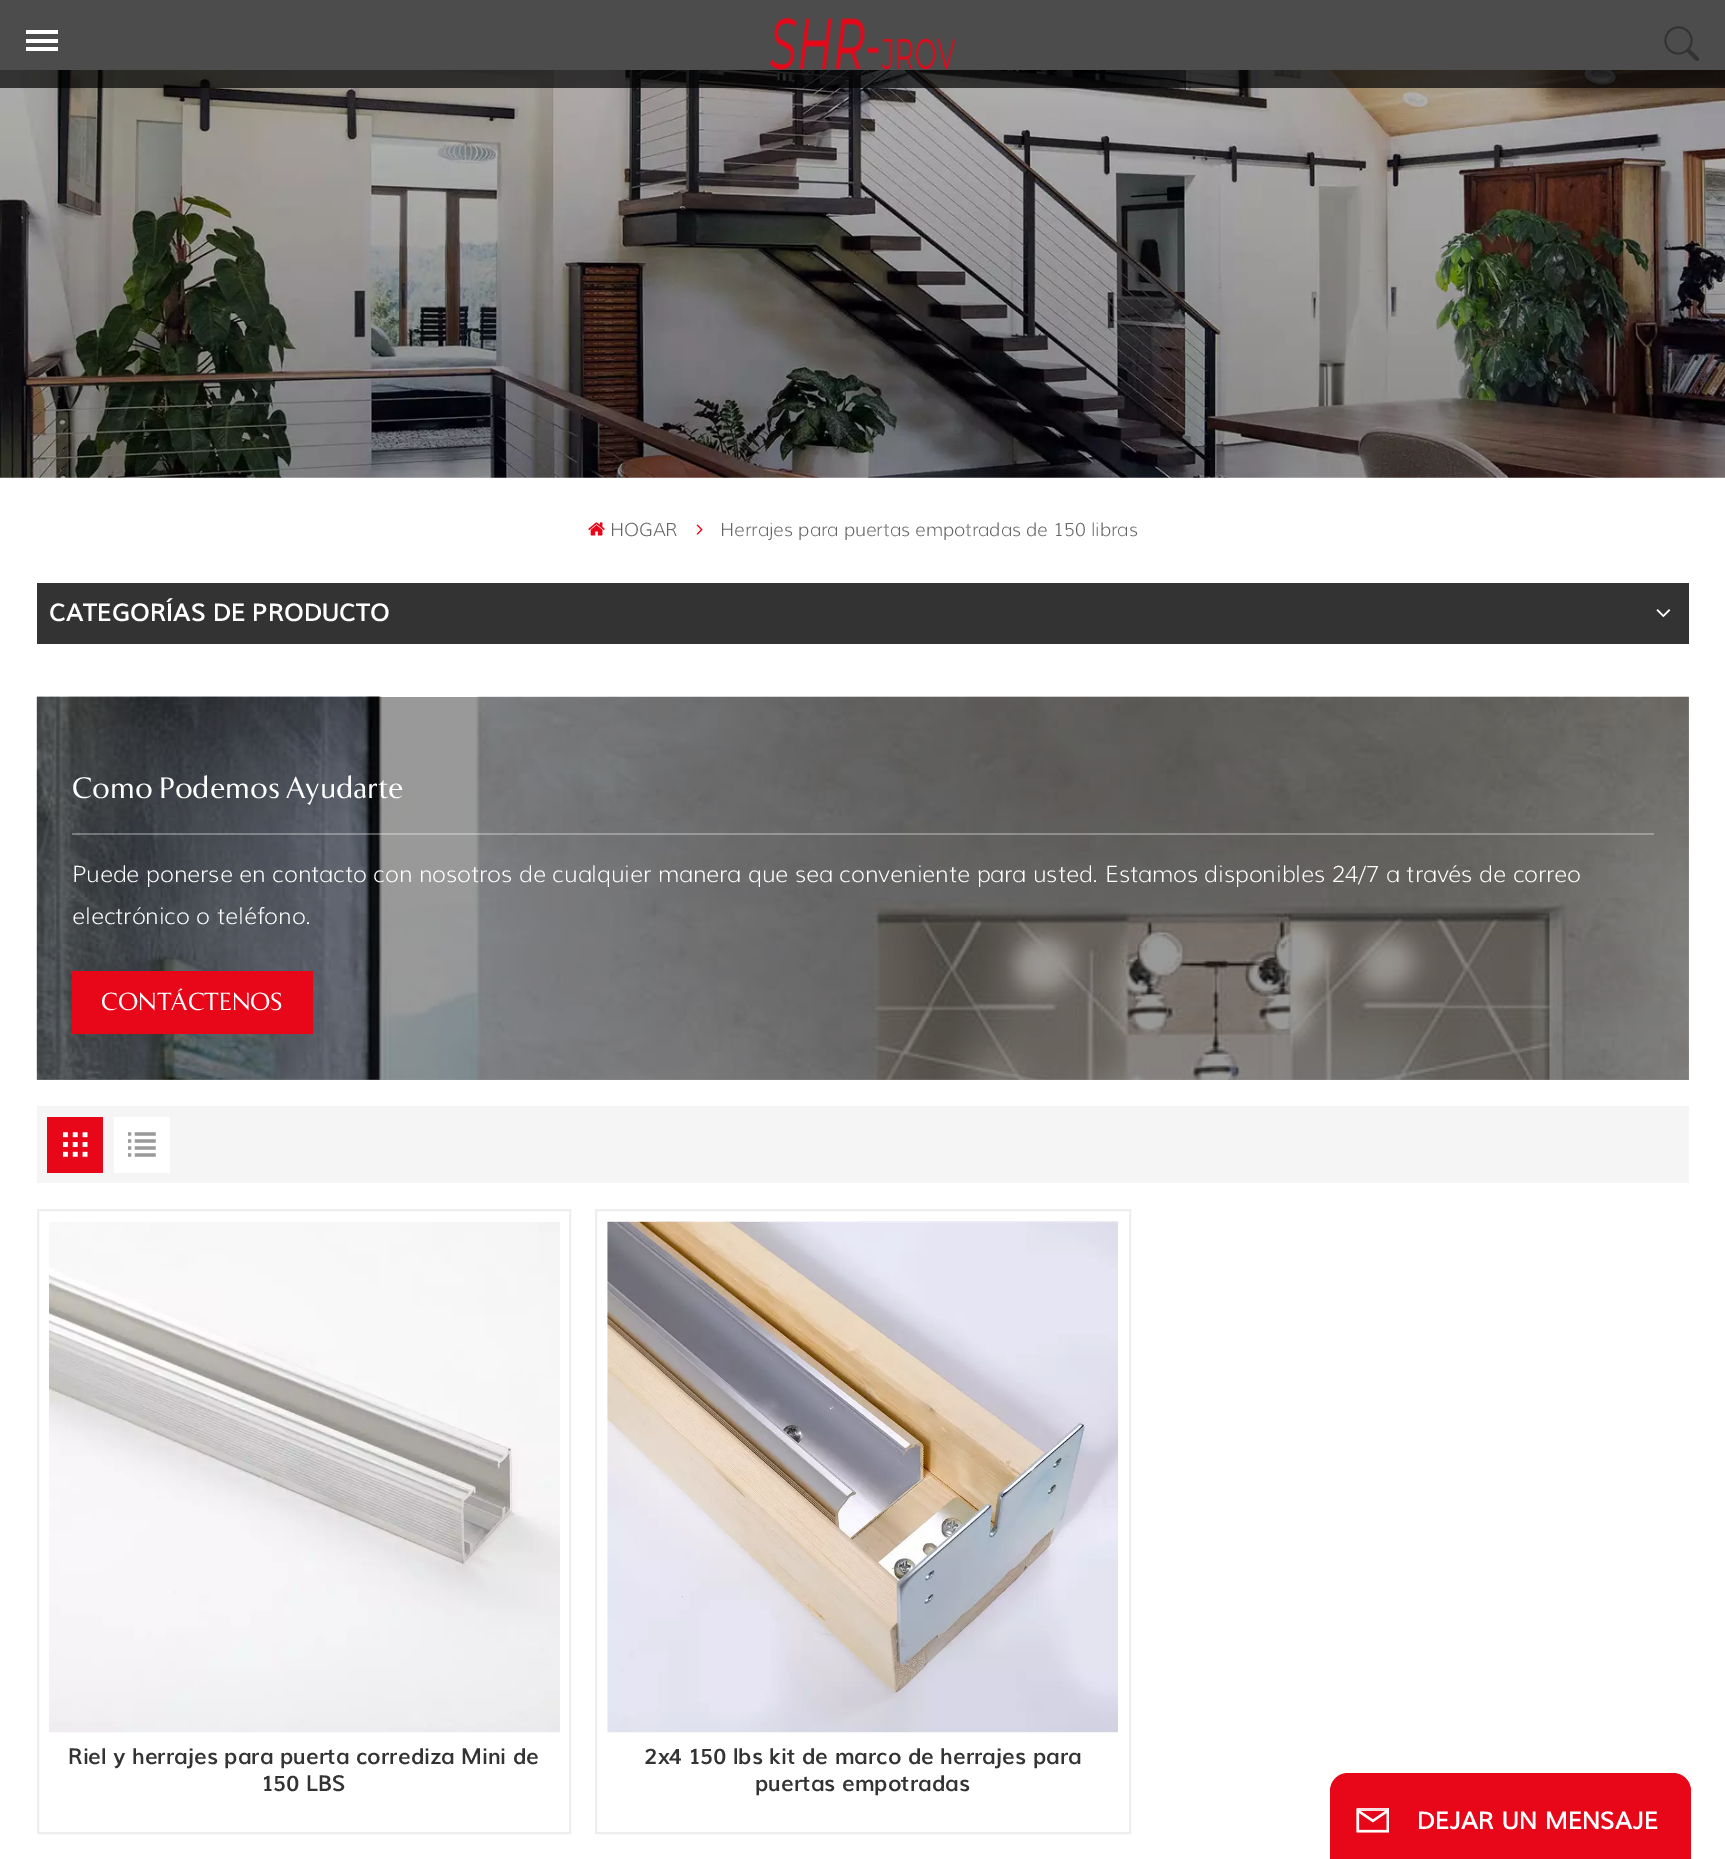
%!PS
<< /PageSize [1725 1859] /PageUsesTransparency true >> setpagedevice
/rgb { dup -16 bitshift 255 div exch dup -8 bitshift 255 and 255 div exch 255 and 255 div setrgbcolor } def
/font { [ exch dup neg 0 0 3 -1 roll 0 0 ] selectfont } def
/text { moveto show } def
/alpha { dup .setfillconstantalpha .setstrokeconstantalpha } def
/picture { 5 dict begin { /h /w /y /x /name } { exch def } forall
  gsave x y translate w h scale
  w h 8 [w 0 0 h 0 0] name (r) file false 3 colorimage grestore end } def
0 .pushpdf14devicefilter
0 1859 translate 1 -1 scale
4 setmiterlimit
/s1 { /Muli-Light 18.4 font 16#666666 rgb } def
/s2 { /Muli-Bold 24.5 font 16#FFFFFF rgb } def
/s3 { /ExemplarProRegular-Regular 29.4 font 16#FFFFFF rgb } def
/s4 { /Muli-Light 22.75 font 16#FFFFFF rgb } def
/s5 { /ExemplarProRegular-Regular 24.5 font 16#FFFFFF rgb } def
/s6 { /Muli-Bold 22.05 font 16#333333 rgb } def
16#FFFFFF rgb
0 0 1725 1859 rectfill
16#999999 rgb
37 697 1652 383 rectfill
(pic3.raw) 0 70 1725 408 picture
0.7 alpha
16#000000 rgb
0 0 1725 88 rectfill
1 alpha
16#FFFFFF rgb
26 30 32 4 rectfill
26 39 32 4 rectfill
26 47 32 4 rectfill
(pic1.raw) 770 17 186 53 picture
(pic2.raw) 1664 26 35 35 picture
(pic4.raw) 588 522 17 14 picture
s1
(HOGAR) 610 536 text
(pic5.raw) 696 524 7 11 picture
(Herrajes para puertas empotradas de 150 libras) 720 536 text
16#333333 rgb
37 583 1652 61 rectfill
s2
(CATEGORÍAS DE PRODUCTO) 49 621 text
(pic6.raw) 1656 609 15 9 picture
(pic7.raw) 36 696 1653 384 picture
0.3 alpha
72 833 1582 2 rectfill
1 alpha
s3
(Como Podemos Ayudarte) 72 798 text
s4
(Puede ponerse en contacto con nosotros de cualquier manera que sea conveniente para usted. Estamos disponibles 24/7 a través de correo) 72 882 text
(electrónico o teléfono.) 72 924 text
16#E70719 rgb
72 971 241 63 rectfill
s5
(CONTÁCTENOS) 101 1010 text
16#F5F5F5 rgb
37 1106 1652 77 rectfill
16#E70719 rgb
47 1117 56 56 rectfill
(pic8.raw) 63 1132 25 25 picture
16#FFFFFF rgb
114 1117 56 56 rectfill
(pic9.raw) 128 1132 28 25 picture
16#EEEEEE rgb
2 setlinewidth
38 1210 532 623 rectstroke
(pic10.raw) 49 1222 511 511 picture
s6
(Riel y herrajes para puerta corrediza Mini de) 68 1764 text
(150 LBS) 262 1791 text
16#EEEEEE rgb
596 1210 534 623 rectstroke
(pic11.raw) 607 1221 511 512 picture
s6
(2x4 150 lbs kit de marco de herrajes para) 644 1764 text
(puertas empotradas) 755 1791 text
16#E70719 rgb
1348 1773 moveto 1673 1773 lineto 1683 1773 1691 1781 1691 1791 curveto 1691 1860 lineto 1330 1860 lineto 1330 1791 lineto 1330 1781 1338 1773 1348 1773 curveto closepath fill
(pic12.raw) 1356 1808 33 25 picture
s2
(DEJAR UN MENSAJE) 1417 1829 text
.poppdf14devicefilter showpage
